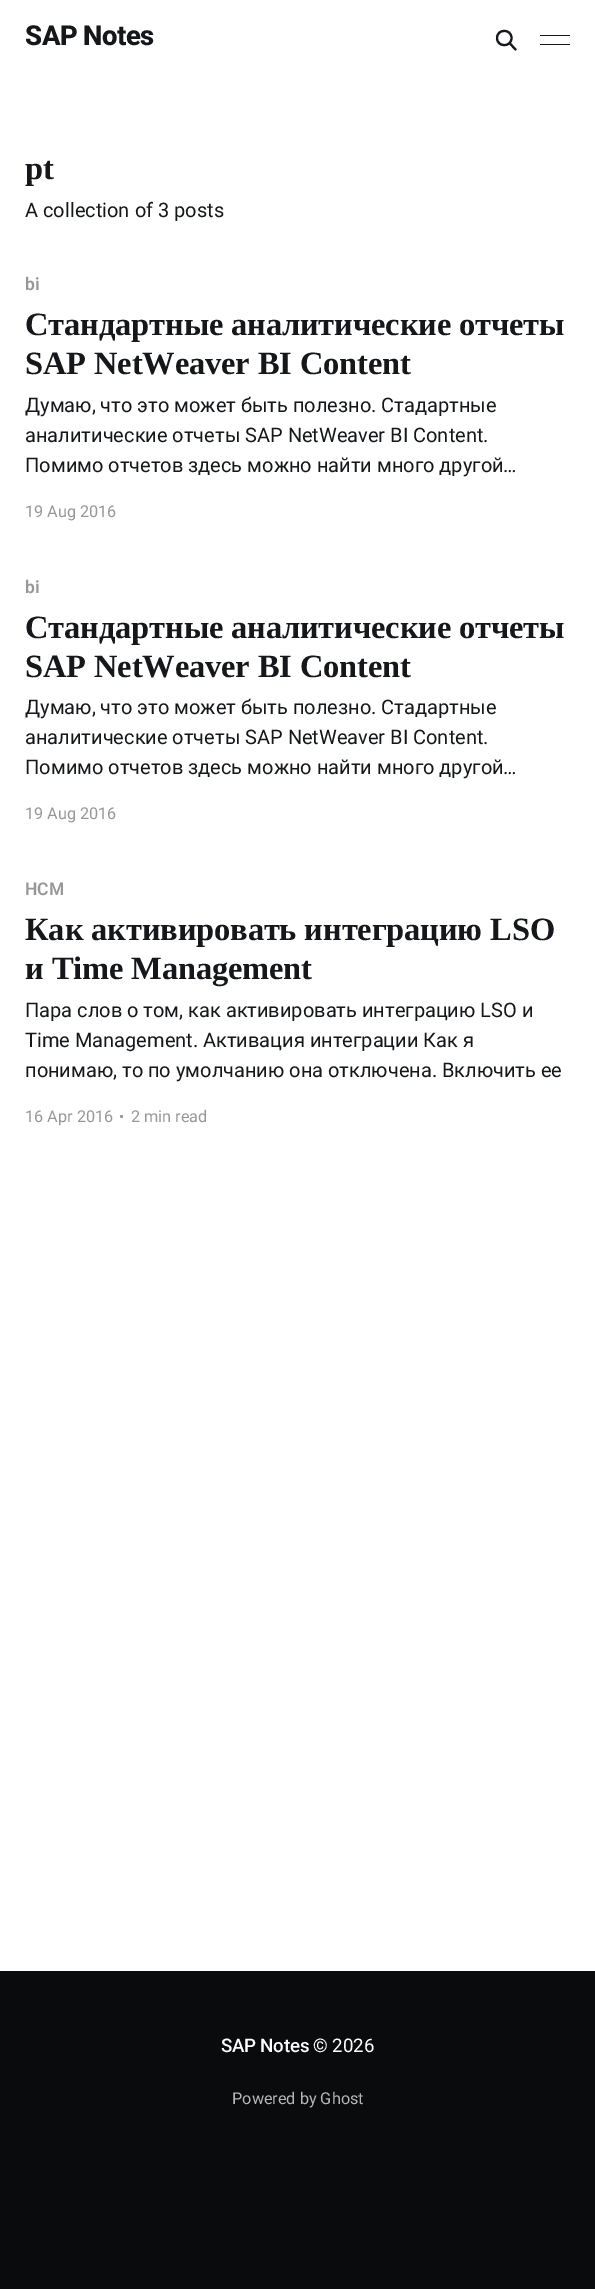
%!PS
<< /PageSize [595 2289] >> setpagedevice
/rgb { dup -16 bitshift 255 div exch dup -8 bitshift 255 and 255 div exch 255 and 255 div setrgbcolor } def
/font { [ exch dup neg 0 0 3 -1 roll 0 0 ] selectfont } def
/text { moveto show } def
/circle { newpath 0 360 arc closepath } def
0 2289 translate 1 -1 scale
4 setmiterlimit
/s1 { /Roboto-Regular 20 font 16#15171A rgb } def
/s2 { /Roboto-SemiBold 17.5 font 16#979797 rgb } def
/s3 { /Roboto-Regular 16.25 font 16#979797 rgb } def
/s4 { /Roboto-Regular 18.75 font 16#FFFFFF rgb } def
/s5 { /Roboto-Regular 16.25 font 16#B6B6B6 rgb } def
16#FFFFFF rgb
0 0 595 2289 rectfill
/Roboto-ExtraBold 27.5 font
16#15171A rgb
25 45 moveto -0.5 0 (SAP Notes) ashow
2.1 setlinewidth
1 setlinecap
1 setlinejoin
515.5 49.5 moveto 509.5 43 lineto 511.5 38 moveto 511.5 47.5 497 47.5 497 38 curveto 497 28.5 511.5 28.5 511.5 38 curveto closepath stroke
540 35 30 1 rectfill
540 44 30 1 rectfill
/LiberationSerif-Bold 32.5 font
25 179 moveto -0.15 0 (pt) ashow
s1
(A collection of 3 posts) 25 217 text
s2
(bi) 25 290 text
/LiberationSerif-Bold 32.5 font
16#15171A rgb
25 335 moveto -0.15 0 (Cтандартные аналитические отчеты) ashow
25 374 moveto -0.15 0 (SAP NetWeaver BI Content) ashow
s1
(Думаю, что это может быть полезно. Стадартные) 25 412 text
(аналитические отчеты SAP NetWeaver BI Content.) 25 442 text
(Помимо отчетов здесь можно найти много другой…) 25 472 text
s3
(19 Aug 2016) 25 517 text
s2
(bi) 25 593 text
/LiberationSerif-Bold 32.5 font
16#15171A rgb
25 638 moveto -0.15 0 (Cтандартные аналитические отчеты) ashow
25 677 moveto -0.15 0 (SAP NetWeaver BI Content) ashow
s1
(Думаю, что это может быть полезно. Стадартные) 25 714 text
(аналитические отчеты SAP NetWeaver BI Content.) 25 744 text
(Помимо отчетов здесь можно найти много другой…) 25 774 text
s3
(19 Aug 2016) 25 819 text
s2
(HCM) 25 895 text
/LiberationSerif-Bold 32.5 font
16#15171A rgb
25 940 moveto -0.15 0 (Как активировать интеграцию LSO) ashow
25 979 moveto -0.15 0 (и Time Management) ashow
s1
(Пара слов о том, как активировать интеграцию LSO и) 25 1017 text
(Time Management. Активация интеграции Как я) 25 1047 text
(понимаю, то по умолчанию она отключена. Включить ее) 25 1077 text
s3
(16 Apr 2016) 25 1122 text
121.5 1116.5 1.5 circle fill
(2 min read) 131 1122 text
16#0A0B0C rgb
0 1971 595 318 rectfill
/Roboto-Medium 18.75 font
16#FFFFFF rgb
221 2052 moveto -0.25 0 (SAP Notes) ashow
s4
(© 2026) 313 2052 text
s5
(Powered by Ghost) 232 2104 text
showpage
